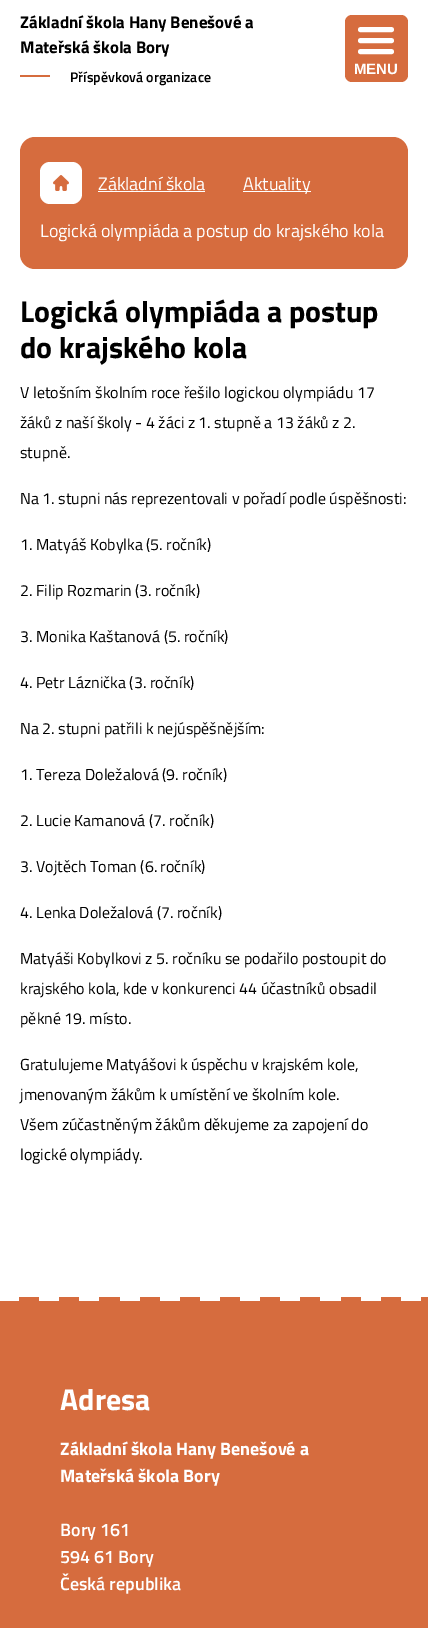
%!PS
<< /PageSize [428 1628] >> setpagedevice
/rgb { dup -16 bitshift 255 div exch dup -8 bitshift 255 and 255 div exch 255 and 255 div setrgbcolor } def
/font { [ exch dup neg 0 0 3 -1 roll 0 0 ] selectfont } def
/text { moveto show } def
/roundrect { 5 dict begin { /r /h /w /y /x } { exch def } forall
  x r add y moveto x w add y 2 copy h add r arct x w add y h add x 1 index r arct
  x y h add x y r arct x y 2 copy exch w add exch r arct closepath end } def
/picture { 5 dict begin { /h /w /y /x /name } { exch def } forall
  gsave x y translate w h scale
  w h 8 [w 0 0 h 0 0] name (r) file false 3 colorimage grestore end } def
0 1628 translate 1 -1 scale
4 setmiterlimit
/s1 { /TitilliumWeb-Bold 16.9 font 16#000000 rgb } def
/s2 { /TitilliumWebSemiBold-SemiBold 14 font 16#000000 rgb } def
/s3 { /LiberationSans-Bold 15 font 16#FFFFFF rgb } def
/s4 { /TitilliumWeb-Regular 18 font 16#FFFFFF rgb } def
/s5 { /TitilliumWeb-Bold 30 font 16#000000 rgb } def
/s6 { /TitilliumWeb-Regular 16 font 16#000000 rgb } def
/s7 { /TitilliumWeb-Bold 30 font 16#FFFFFF rgb } def
/s8 { /TitilliumWeb-Bold 18 font 16#FFFFFF rgb } def
/s9 { /TitilliumWebSemiBold-SemiBold 18 font 16#FFFFFF rgb } def
16#FFFFFF rgb
0 0 428 1628 rectfill
s1
(Základní škola Hany Benešové a) 20 28 text
(Mateřská škola Bory) 20 53 text
16#D66C3E rgb
20 75 30 2 rectfill
s2
(Příspěvková organizace) 70 82 text
16#D66C3E rgb
345 15 63 67 7 roundrect fill
16#FFFFFF rgb
5 setlinewidth
1 setlinecap
360.5 51.5 moveto 391.5 51.5 lineto 360.5 40.5 moveto 391.5 40.5 lineto 360.5 29.5 moveto 391.5 29.5 lineto stroke
s3
(MENU) 354 74 text
16#D66C3E rgb
20 137 388 132 15 roundrect fill
16#FFFFFF rgb
40 162 42 42 10 roundrect fill
(pic1.raw) 53 175 16 16 picture
s4
(Základní škola) 98 190 text
98 191 107 1 rectfill
243 191 68 1 rectfill
(Aktuality) 243 190 text
(Logická olympiáda a postup do krajského kola) 40 237 text
s5
(Logická olympiáda a postup) 20 322 text
(do krajského kola) 20 358 text
s6
(V letošním školním roce řešilo logickou olympiádu 17) 20 398 text
(žáků z naší školy - 4 žáci z 1. stupně a 13 žáků z 2.) 20 428 text
(stupně.) 20 458 text
(Na 1. stupni nás reprezentovali v pořadí podle úspěšnosti:) 20 504 text
(1. Matyáš Kobylka \(5. ročník\)) 20 550 text
(2. Filip Rozmarin \(3. ročník\)) 20 596 text
(3. Monika Kaštanová \(5. ročník\)) 20 642 text
(4. Petr Láznička \(3. ročník\)) 20 688 text
(Na 2. stupni patřili k nejúspěšnějším:) 20 734 text
(1. Tereza Doležalová \(9. ročník\)) 20 780 text
(2. Lucie Kamanová \(7. ročník\)) 20 826 text
(3. Vojtěch Toman \(6. ročník\)) 20 872 text
(4. Lenka Doležalová \(7. ročník\)) 20 918 text
(Matyáši Kobylkovi z 5. ročníku se podařilo postoupit do) 20 964 text
(krajského kola, kde v konkurenci 44 účastníků obsadil) 20 994 text
(pěkné 19. místo.) 20 1024 text
(Gratulujeme Matyášovi k úspěchu v krajském kole,) 20 1070 text
(jmenovaným žákům k umístění ve školním kole.) 20 1100 text
(Všem zúčastněným žákům děkujeme za zapojení do) 20 1130 text
(logické olympiády.) 20 1160 text
16#D66C3E rgb
0 1297 428 331 rectfill
(pic2.raw) 0 1297 421 4 picture
s7
(Adresa) 60 1410 text
s8
(Základní škola Hany Benešové a) 60 1455 text
(Mateřská škola Bory) 60 1482 text
s9
(Bory 161) 60 1536 text
(594 61 Bory) 60 1563 text
(Česká republika) 60 1590 text
showpage
